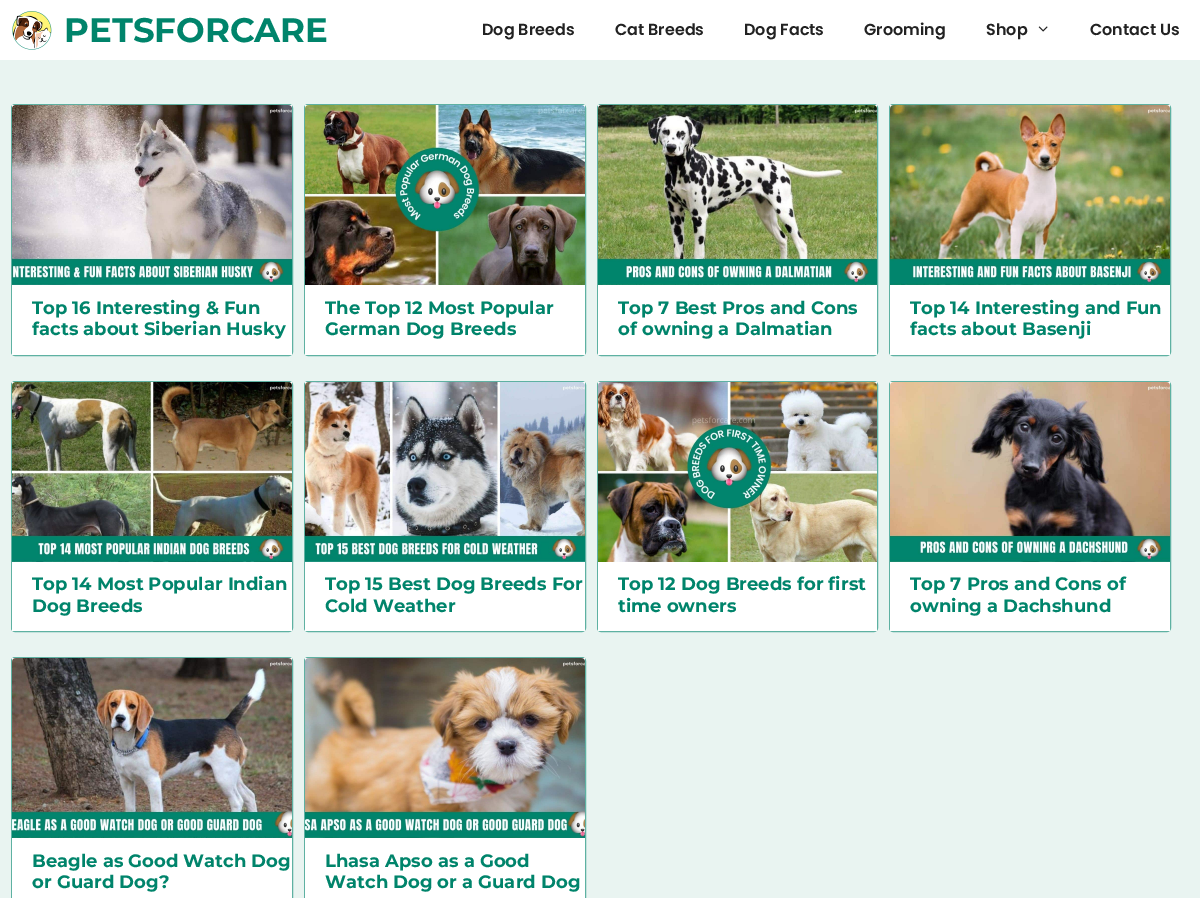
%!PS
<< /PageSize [1200 898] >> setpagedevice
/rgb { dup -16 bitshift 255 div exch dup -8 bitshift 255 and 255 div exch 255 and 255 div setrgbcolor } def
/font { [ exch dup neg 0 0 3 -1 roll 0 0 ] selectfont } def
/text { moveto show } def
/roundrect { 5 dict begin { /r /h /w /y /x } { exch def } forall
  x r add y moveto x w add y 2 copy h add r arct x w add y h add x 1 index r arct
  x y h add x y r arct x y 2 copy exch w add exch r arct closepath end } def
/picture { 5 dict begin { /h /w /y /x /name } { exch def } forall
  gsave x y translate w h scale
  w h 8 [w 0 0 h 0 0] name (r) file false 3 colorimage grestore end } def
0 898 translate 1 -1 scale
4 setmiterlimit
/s1 { /Montserrat-Bold 34 font 16#00846B rgb } def
/s2 { /Poppins-SemiBold 16 font 16#222222 rgb } def
/s3 { /Montserrat-Bold 18 font 16#00846B rgb } def
16#E9F4F1 rgb
0 0 1200 898 rectfill
16#FFFFFF rgb
0 0 1200 60 rectfill
(pic1.raw) 12 11 40 39 picture
s1
(PETSFORCARE) 64 42 text
s2
(Dog Breeds) 482 35 text
(Cat Breeds) 615 35 text
(Dog Facts) 744 35 text
(Grooming) 864 35 text
(Shop) 986 35 text
(pic2.raw) 1038 26 10 6 picture
(Contact Us) 1090 35 text
16#5EB1A2 rgb
11.5 104.5 281 251 3.5 roundrect stroke
16#FFFFFF rgb
12 105 280 250 rectfill
(pic3.raw) 12 105 280 180 picture
s3
(Top 16 Interesting & Fun) 32 314 text
(facts about Siberian Husky) 32 335 text
16#5EB1A2 rgb
304.5 104.5 281 251 3.5 roundrect stroke
16#FFFFFF rgb
305 105 280 250 rectfill
(pic4.raw) 305 105 280 180 picture
s3
(The Top 12 Most Popular) 325 314 text
(German Dog Breeds) 325 335 text
16#5EB1A2 rgb
597.5 104.5 280 251 3.5 roundrect stroke
16#FFFFFF rgb
598 105 279 250 rectfill
(pic5.raw) 598 105 279 180 picture
s3
(Top 7 Best Pros and Cons) 618 314 text
(of owning a Dalmatian) 618 335 text
16#5EB1A2 rgb
889.5 104.5 281 251 3.5 roundrect stroke
16#FFFFFF rgb
890 105 280 250 rectfill
(pic6.raw) 890 105 280 180 picture
s3
(Top 14 Interesting and Fun) 910 314 text
(facts about Basenji) 910 335 text
16#5EB1A2 rgb
11.5 381.5 281 250 3.5 roundrect stroke
16#FFFFFF rgb
12 382 280 249 rectfill
(pic7.raw) 12 382 280 180 picture
s3
(Top 14 Most Popular Indian) 32 590 text
(Dog Breeds) 32 612 text
16#5EB1A2 rgb
304.5 381.5 281 250 3.5 roundrect stroke
16#FFFFFF rgb
305 382 280 249 rectfill
(pic8.raw) 305 382 280 180 picture
s3
(Top 15 Best Dog Breeds For) 325 590 text
(Cold Weather) 325 612 text
16#5EB1A2 rgb
597.5 381.5 280 250 3.5 roundrect stroke
16#FFFFFF rgb
598 382 279 249 rectfill
(pic9.raw) 598 382 279 180 picture
s3
(Top 12 Dog Breeds for first) 618 590 text
(time owners) 618 612 text
16#5EB1A2 rgb
889.5 381.5 281 250 3.5 roundrect stroke
16#FFFFFF rgb
890 382 280 249 rectfill
(pic10.raw) 890 382 280 180 picture
s3
(Top 7 Pros and Cons of) 910 590 text
(owning a Dachshund) 910 612 text
16#5EB1A2 rgb
11.5 657.5 281 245 3.5 roundrect stroke
16#FFFFFF rgb
12 658 280 240 rectfill
(pic11.raw) 12 658 280 180 picture
s3
(Beagle as Good Watch Dog) 32 867 text
(or Guard Dog?) 32 888 text
16#5EB1A2 rgb
304.5 657.5 281 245 3.5 roundrect stroke
16#FFFFFF rgb
305 658 280 240 rectfill
(pic12.raw) 305 658 280 180 picture
s3
(Lhasa Apso as a Good) 325 867 text
(Watch Dog or a Guard Dog) 325 888 text
showpage
